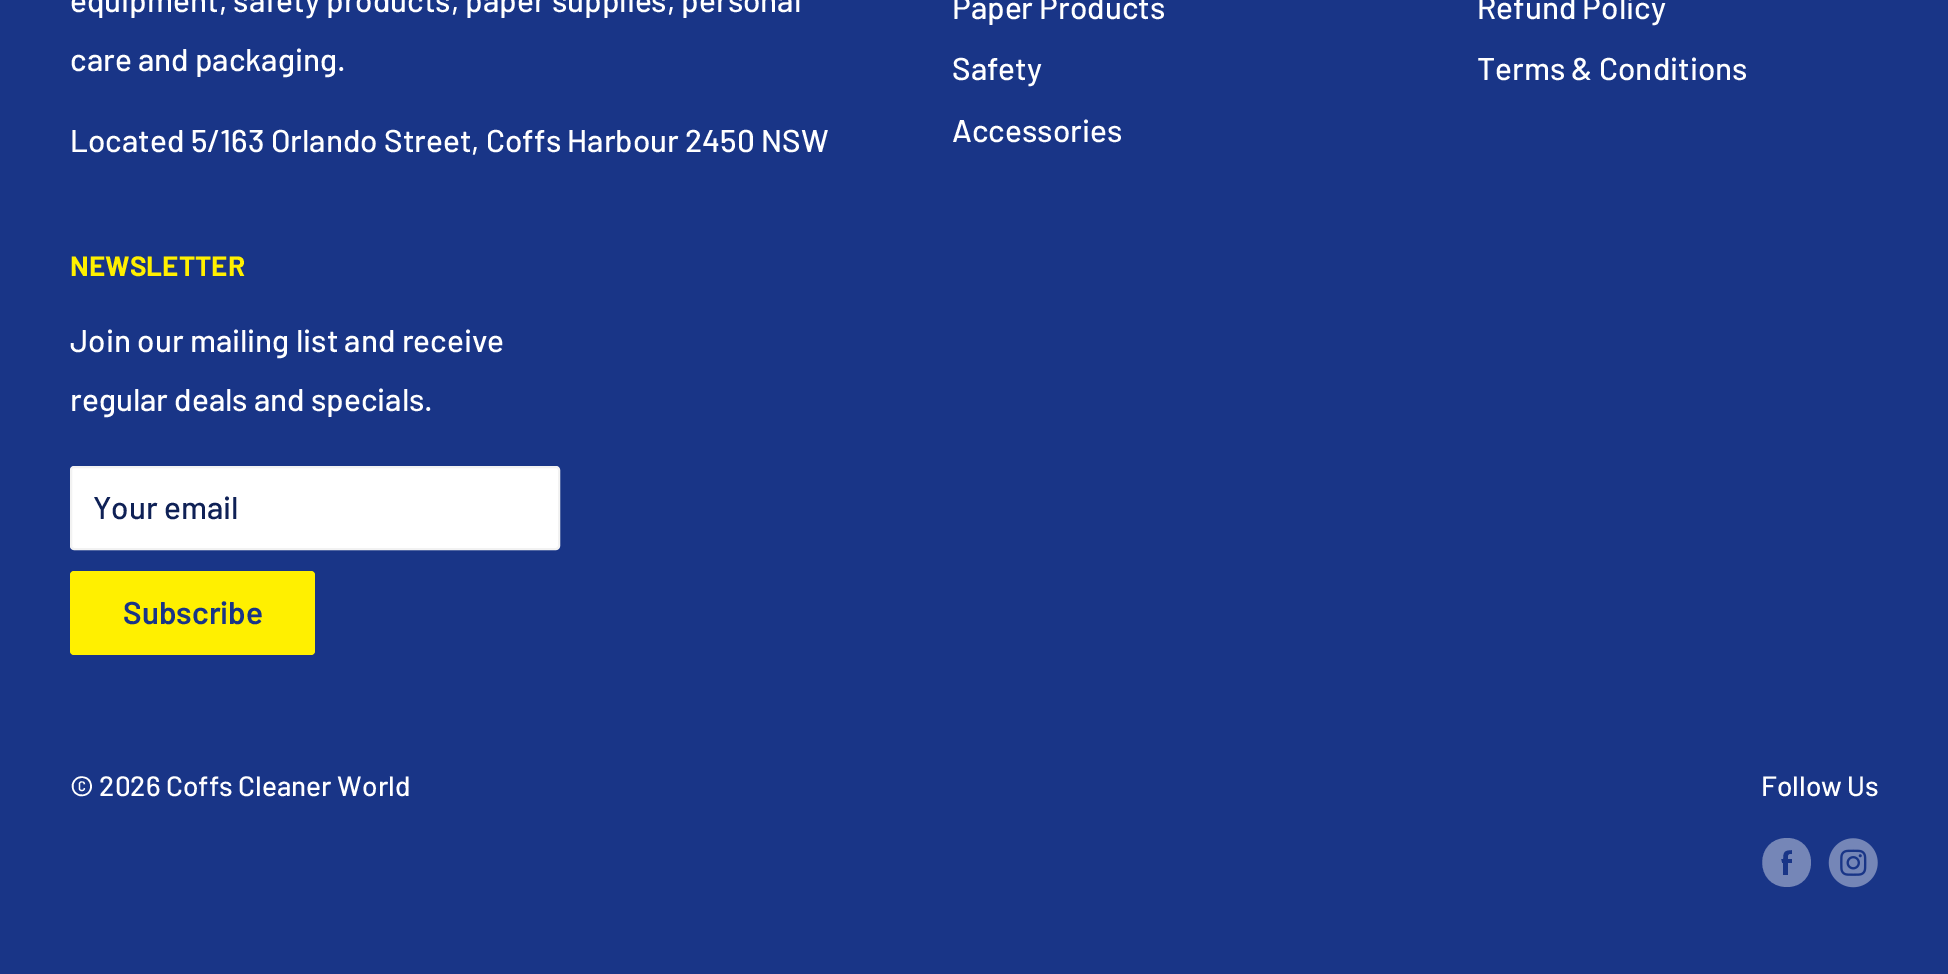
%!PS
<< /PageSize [1948 974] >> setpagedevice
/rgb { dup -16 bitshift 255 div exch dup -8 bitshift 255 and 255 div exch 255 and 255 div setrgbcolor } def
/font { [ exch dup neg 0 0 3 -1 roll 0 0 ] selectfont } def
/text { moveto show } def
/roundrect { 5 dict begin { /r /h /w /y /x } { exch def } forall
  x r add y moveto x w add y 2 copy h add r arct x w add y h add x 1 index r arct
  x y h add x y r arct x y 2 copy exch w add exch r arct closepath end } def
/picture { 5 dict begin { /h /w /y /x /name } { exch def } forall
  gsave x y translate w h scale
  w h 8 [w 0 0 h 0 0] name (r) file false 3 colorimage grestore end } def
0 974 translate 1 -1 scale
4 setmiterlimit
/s1 { /Barlow-Medium 31.5 font 16#FFFFFF rgb } def
/s2 { /Barlow-Bold 28 font 16#FFF000 rgb } def
/s3 { /Barlow-Medium 31.5 font 16#0F2156 rgb } def
/s4 { /Barlow-SemiBold 31.5 font 16#193587 rgb } def
/s5 { /Barlow-Medium 28 font 16#FFFFFF rgb } def
16#193587 rgb
0 0 1948 974 rectfill
s1
(equipment, safety products, paper supplies, personal) 70 12 text
(care and packaging.) 70 71 text
(Located 5/163 Orlando Street, Coffs Harbour 2450 NSW) 70 152 text
(Paper Products) 952 19 text
(Safety) 952 80 text
(Accessories) 952 142 text
(Refund Policy) 1477 19 text
(Terms & Conditions) 1477 80 text
s2
(NEWSLETTER) 70 276 text
s1
(Join our mailing list and receive) 70 352 text
(regular deals and specials.) 70 411 text
71 467 488 82 3 roundrect gsave fill grestore
16#F2F2F2 rgb
2 setlinewidth
stroke
s3
(Your email) 93 519 text
16#FFF000 rgb
70 571 245 84 4 roundrect fill
s4
(Subscribe) 123 624 text
s5
(© 2026 Coffs Cleaner World) 70 796 text
(Follow Us) 1761 796 text
16#7586B7 rgb
1787 887 moveto 1754 887 1754 838 1787 838 curveto 1819 838 1819 887 1787 887 curveto closepath 1792 859 moveto 1788 859 lineto 1788 855 1788 854 1792 854 curveto 1792 850 lineto 1784 850 1783 852 1783 859 curveto 1781 859 lineto 1782 863 lineto 1783 863 lineto 1783 875 lineto 1788 875 lineto 1788 863 lineto 1792 863 lineto closepath eofill
(pic1.raw) 1828 838 50 50 picture
showpage
